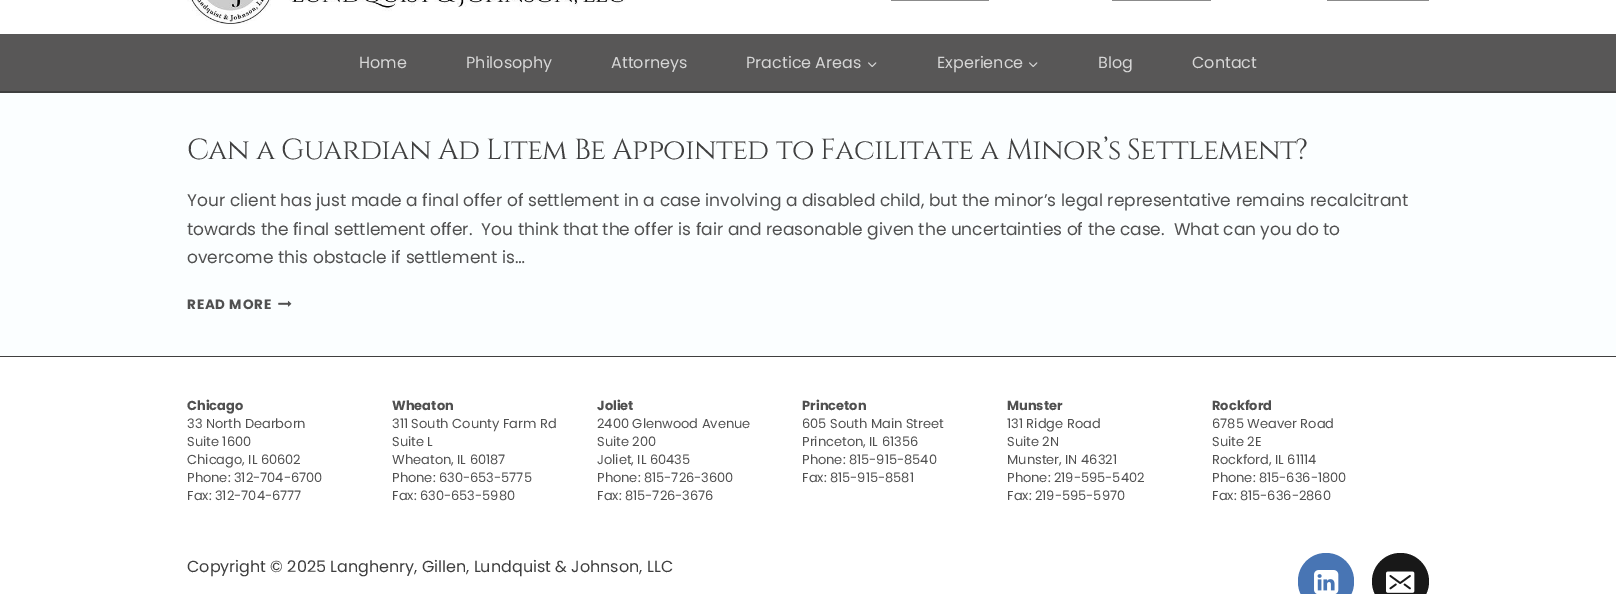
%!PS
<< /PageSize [1616 594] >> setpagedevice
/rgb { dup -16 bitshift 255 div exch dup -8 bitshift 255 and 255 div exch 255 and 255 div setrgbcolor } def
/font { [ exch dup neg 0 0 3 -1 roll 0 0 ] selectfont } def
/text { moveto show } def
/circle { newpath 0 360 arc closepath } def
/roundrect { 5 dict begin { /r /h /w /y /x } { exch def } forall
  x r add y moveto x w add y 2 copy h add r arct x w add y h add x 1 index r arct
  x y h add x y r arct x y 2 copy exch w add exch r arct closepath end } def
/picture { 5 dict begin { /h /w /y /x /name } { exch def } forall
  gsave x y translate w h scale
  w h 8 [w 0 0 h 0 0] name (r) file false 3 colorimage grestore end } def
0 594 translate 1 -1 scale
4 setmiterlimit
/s1 { /Poppins-Regular 16 font 16#D6D6D6 rgb } def
/s2 { /Poppins-Regular 17 font 16#505050 rgb } def
/s3 { /Poppins-Bold 13 font 16#505050 rgb } def
/s4 { /Poppins-Regular 13 font 16#505050 rgb } def
/s5 { /Poppins-Regular 16 font 16#3F3F3F rgb } def
16#FBFEFF rgb
0 0 1616 594 rectfill
16#FFFFFF rgb
0 0 1616 34 rectfill
(pic1.raw) 187 0 438 24 picture
16#8B8B8B rgb
891 0 98 1 rectfill
1112 0 99 1 rectfill
1327 0 102 1 rectfill
16#585757 rgb
0 34 1616 57 rectfill
16#3F3F3F rgb
0 91 1616 2 rectfill
s1
(Home) 359 68 text
(Philosophy) 466 68 text
(Attorneys) 611 68 text
(Practice Areas) 746 68 text
(pic2.raw) 868 62 9 5 picture
(Experience) 937 68 text
(pic2.raw) 1029 62 9 5 picture
(Blog) 1098 68 text
(Contact) 1192 68 text
/Cinzel-Regular 29 font
16#3F3F3F rgb
187 159 moveto -0.58 0 (Can a Guardian Ad Litem Be Appointed to Facilitate a Minor’s Settlement?) ashow
s2
(Your client has just made a final offer of settlement in a case involving a disabled child, but the minor’s legal representative remains recalcitrant) 187 206 text
(towards the final settlement offer.  You think that the offer is fair and reasonable given the uncertainties of the case.  What can you do to) 187 235 text
(overcome this obstacle if settlement is…) 187 263 text
/Poppins-Bold 13.5 font
187 309 moveto 0.75 0 (READ MORE) ashow
(pic3.raw) 278 300 14 7 picture
16#FFFFFF rgb
0 357 1616 237 rectfill
16#3F3F3F rgb
0 356 1616 1 rectfill
s3
(Chicago) 187 410 text
s4
(33 North Dearborn) 187 428 text
(Suite 1600) 187 446 text
(Chicago, IL 60602) 187 464 text
(Phone: 312-704-6700) 187 482 text
(Fax: 312-704-6777) 187 500 text
s3
(Wheaton) 392 410 text
s4
(311 South County Farm Rd) 392 428 text
(Suite L) 392 446 text
(Wheaton, IL 60187) 392 464 text
(Phone: 630-653-5775) 392 482 text
(Fax: 630-653-5980) 392 500 text
s3
(Joliet) 597 410 text
s4
(2400 Glenwood Avenue) 597 428 text
(Suite 200) 597 446 text
(Joliet, IL 60435) 597 464 text
(Phone: 815-726-3600) 597 482 text
(Fax: 815-726-3676) 597 500 text
s3
(Princeton) 802 410 text
s4
(605 South Main Street) 802 428 text
(Princeton, IL 61356) 802 446 text
(Phone: 815-915-8540) 802 464 text
(Fax: 815-915-8581) 802 482 text
s3
(Munster) 1007 410 text
s4
(131 Ridge Road) 1007 428 text
(Suite 2N) 1007 446 text
(Munster, IN 46321) 1007 464 text
(Phone: 219-595-5402) 1007 482 text
(Fax: 219-595-5970) 1007 500 text
s3
(Rockford) 1212 410 text
s4
(6785 Weaver Road) 1212 428 text
(Suite 2E) 1212 446 text
(Rockford, IL 61114) 1212 464 text
(Phone: 815-636-1800) 1212 482 text
(Fax: 815-636-2860) 1212 500 text
s5
(Copyright © 2025 Langhenry, Gillen, Lundquist & Johnson, LLC) 187 572 text
16#4875B4 rgb
1298 553 56 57 28 roundrect fill
(pic4.raw) 1314 570 25 24 picture
16#181818 rgb
1400.5 581.5 28.5 circle fill
(pic5.raw) 1386 571 29 22 picture
showpage
